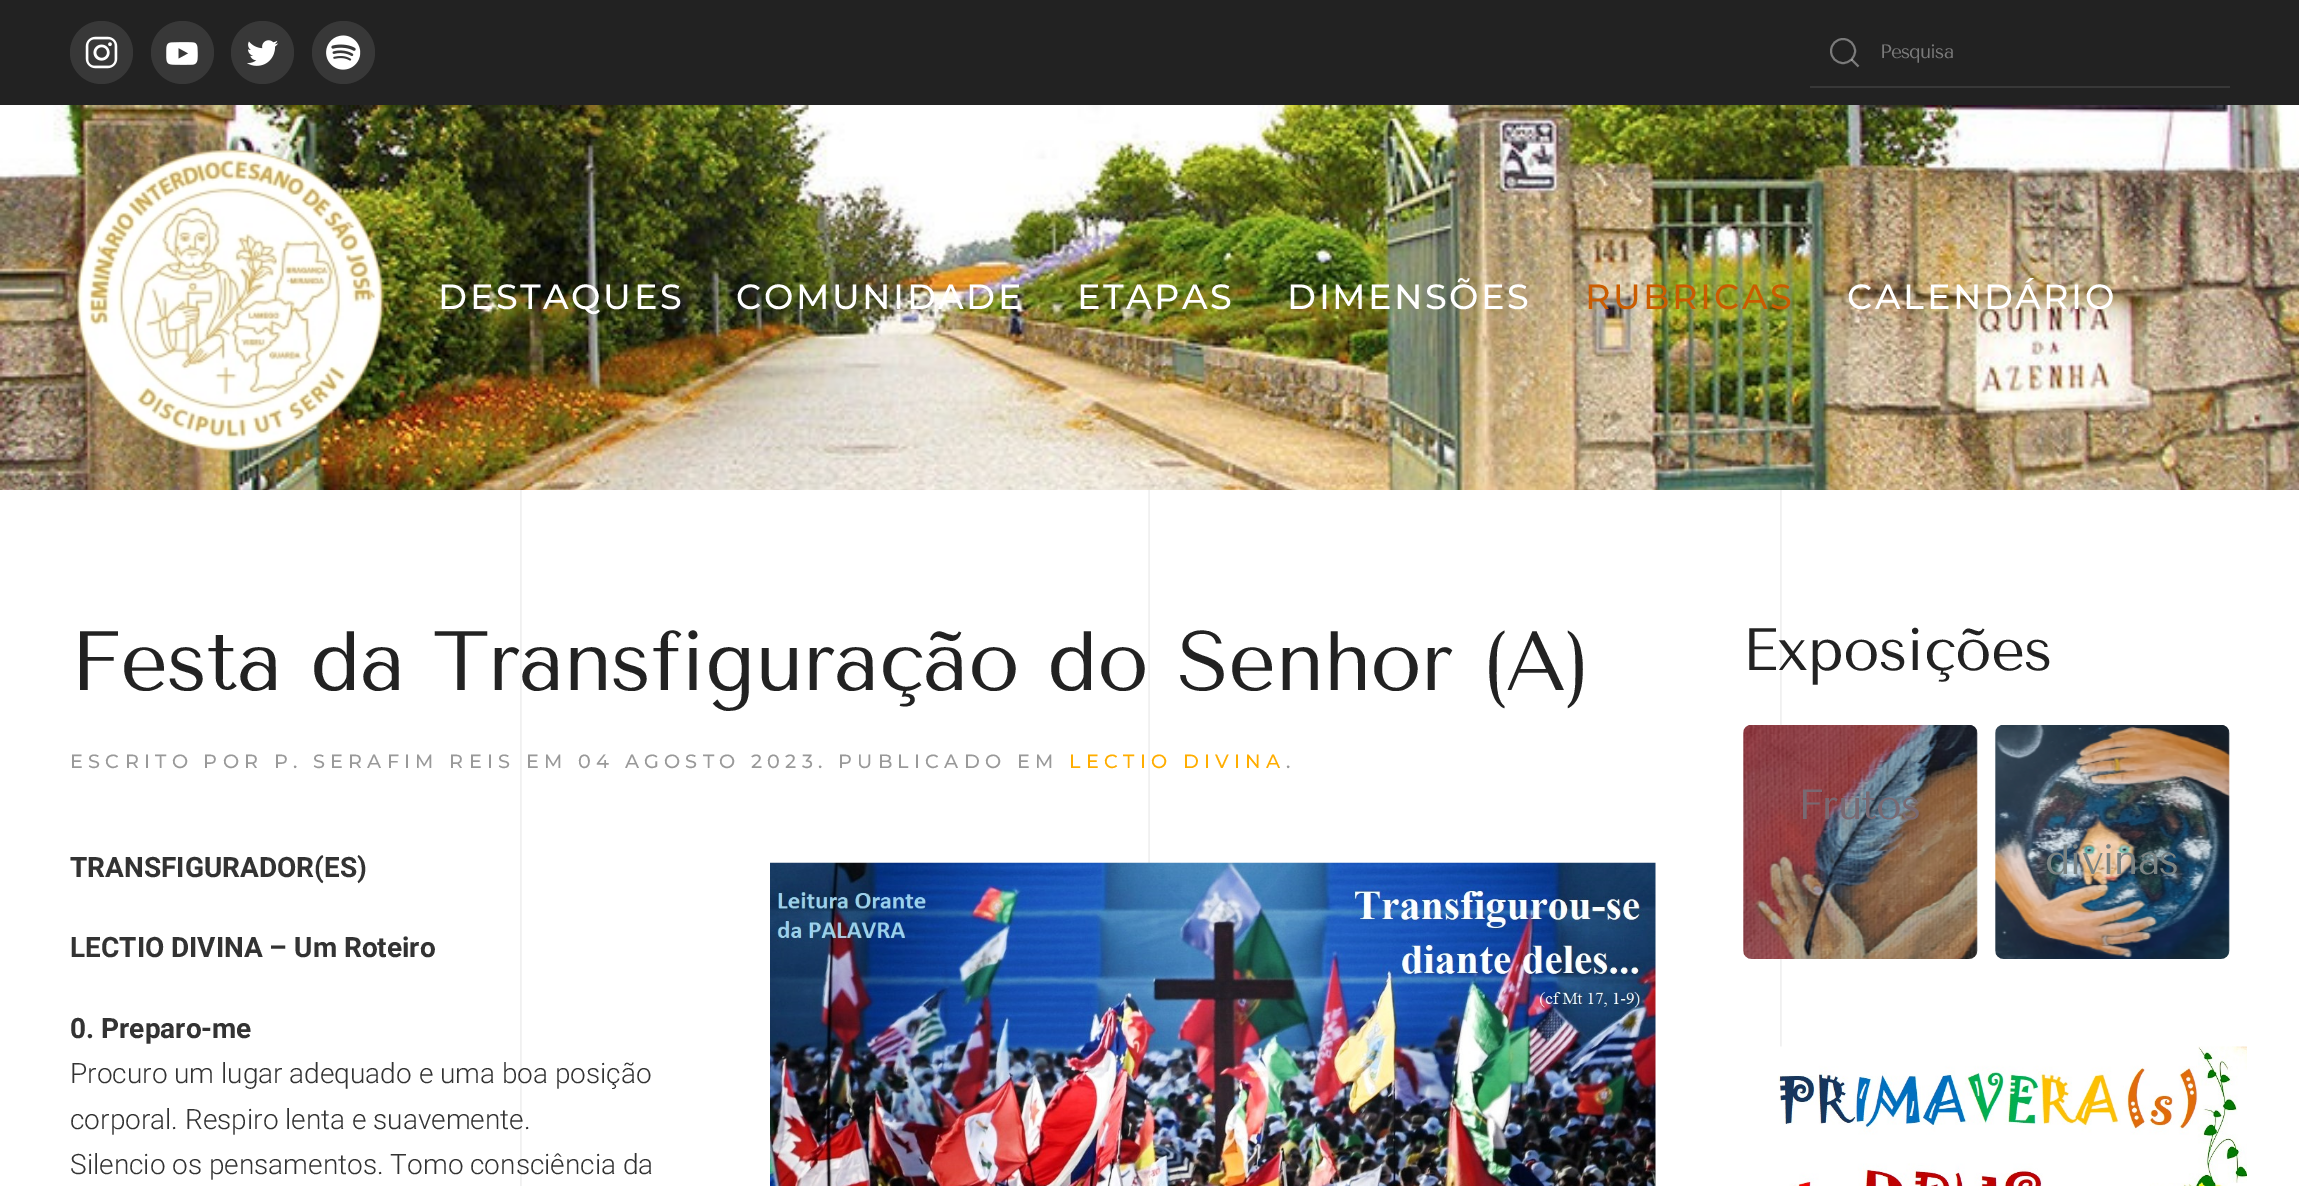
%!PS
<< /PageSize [2299 1186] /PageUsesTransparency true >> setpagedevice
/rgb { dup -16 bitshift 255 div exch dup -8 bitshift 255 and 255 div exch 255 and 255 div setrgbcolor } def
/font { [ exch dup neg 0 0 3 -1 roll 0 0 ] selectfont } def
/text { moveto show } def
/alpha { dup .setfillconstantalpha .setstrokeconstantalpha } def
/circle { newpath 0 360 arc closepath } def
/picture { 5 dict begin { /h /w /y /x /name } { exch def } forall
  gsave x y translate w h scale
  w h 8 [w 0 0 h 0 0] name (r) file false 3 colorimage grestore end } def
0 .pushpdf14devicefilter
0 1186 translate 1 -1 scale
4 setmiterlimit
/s1 { /Roboto-Bold 28 font 16#333333 rgb } def
/s2 { /Roboto-Light 28 font 16#333333 rgb } def
16#FFFFFF rgb
0 0 2299 1186 rectfill
16#222222 rgb
0 0 2299 105 rectfill
16#383838 rgb
101.5 52.5 31.5 circle fill
(pic1.raw) 85 36 33 33 picture
182.5 52.5 31.5 circle fill
(pic2.raw) 166 42 32 23 picture
262.5 52.5 31.5 circle fill
(pic3.raw) 247 40 32 26 picture
343.5 52.5 31.5 circle fill
(pic4.raw) 326 35 35 35 picture
16#7A7A7A rgb
1.9 setlinewidth
1843 51 12 circle stroke
0.4 alpha
16#FFFFFF rgb
1851.5 59.5 moveto 1858.5 66.5 lineto closepath stroke
1 alpha
16#383838 rgb
1810 86 420 2 rectfill
/TenorSans-Regular 19.25 font
16#7A7A7A rgb
1880 58 moveto -0.9 0 (Pesquisa) ashow
(pic5.raw) 0 105 2299 385 picture
(pic6.raw) 76 148 308 304 picture
/Montserrat-Medium 35 font
16#FFFFFF rgb
438 309 moveto 2.6 0 (DESTAQUES) ashow
736 309 moveto 2.6 0 (COMUNIDADE) ashow
1077 309 moveto 2.6 0 (ETAPAS) ashow
1287 309 moveto 2.6 0 (DIMENSÕES) ashow
16#CA5C00 rgb
1585 309 moveto 2.6 0 (RUBRICAS) ashow
16#FFFFFF rgb
1847 309 moveto 2.6 0 (CALENDÁRIO) ashow
(pic7.raw) 520 490 1262 696 picture
/TenorSans-Regular 84 font
16#222222 rgb
70 690 moveto -0.9 0 (Festa da Transfiguração do Senhor \(A\)) ashow
/Montserrat-Medium 19.25 font
16#999999 rgb
70 768 moveto 5.25 0 (ESCRITO POR P. SERAFIM REIS EM 04 AGOSTO 2023. PUBLICADO EM) ashow
16#FFAD00 rgb
1069 768 moveto 5.25 0 (LECTIO DIVINA) ashow
16#999999 rgb
1286 768 moveto 5.25 0 (.) ashow
s1
(TRANSFIGURADOR\(ES\)) 70 877 text
(pic8.raw) 770 862 886 324 picture
(LECTIO DIVINA – Um Roteiro) 70 957 text
(0. Preparo-me) 70 1038 text
s2
(Procuro um lugar adequado e uma boa posição) 70 1083 text
(corporal. Respiro lenta e suavemente.) 70 1129 text
(Silencio os pensamentos. Tomo consciência da) 70 1174 text
/TenorSans-Regular 59.5 font
16#222222 rgb
1742 670 moveto -0.9 0 (Exposições) ashow
(pic9.raw) 1743 725 235 234 picture
/TenorSans-Regular 42 font
16#796972 rgb
1798 819 moveto -0.9 0 (Frutos) ashow
(pic10.raw) 1995 725 235 234 picture
16#7B8383 rgb
2045 874 moveto -0.9 0 (divinas) ashow
(pic11.raw) 1778 1046 469 140 picture
.poppdf14devicefilter showpage
